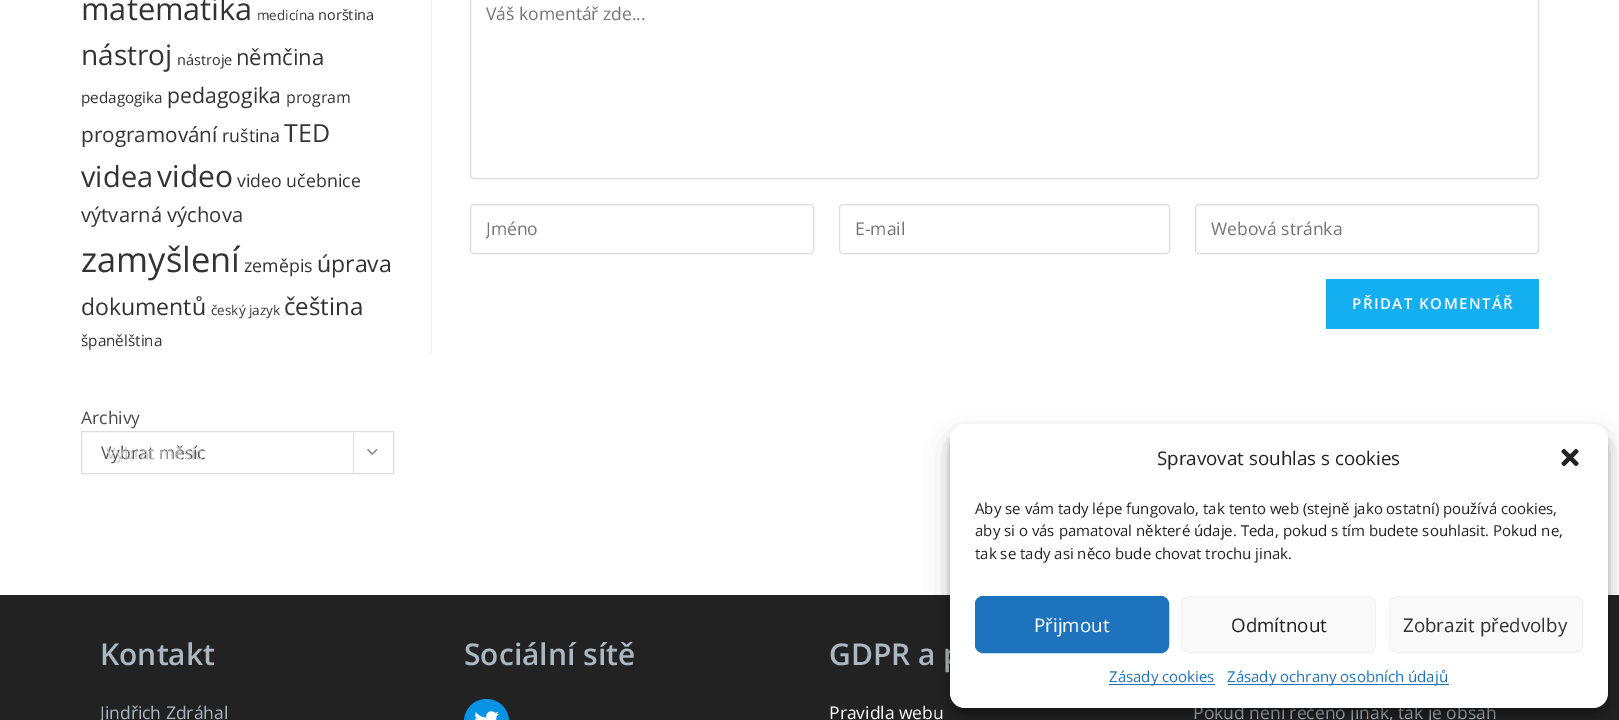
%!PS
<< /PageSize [1619 720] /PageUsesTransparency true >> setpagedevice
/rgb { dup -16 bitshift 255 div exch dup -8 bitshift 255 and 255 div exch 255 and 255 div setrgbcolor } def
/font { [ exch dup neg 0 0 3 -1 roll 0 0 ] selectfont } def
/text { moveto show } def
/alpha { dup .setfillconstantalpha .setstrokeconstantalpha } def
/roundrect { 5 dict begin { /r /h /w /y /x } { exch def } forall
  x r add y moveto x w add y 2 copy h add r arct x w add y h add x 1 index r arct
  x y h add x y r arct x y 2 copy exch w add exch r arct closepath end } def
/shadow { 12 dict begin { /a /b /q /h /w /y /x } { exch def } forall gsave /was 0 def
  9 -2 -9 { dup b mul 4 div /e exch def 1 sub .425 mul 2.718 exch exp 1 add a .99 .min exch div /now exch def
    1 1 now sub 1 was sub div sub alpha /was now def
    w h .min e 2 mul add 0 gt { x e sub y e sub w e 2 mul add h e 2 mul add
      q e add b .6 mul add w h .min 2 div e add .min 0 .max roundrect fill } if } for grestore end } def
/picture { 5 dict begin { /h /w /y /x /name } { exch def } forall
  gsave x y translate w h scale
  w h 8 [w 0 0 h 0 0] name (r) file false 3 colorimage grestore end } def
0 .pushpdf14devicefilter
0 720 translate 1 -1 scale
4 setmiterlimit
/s1 { /OpenSans-Regular 30.75 font 16#333333 rgb } def
/s2 { /OpenSans-Regular 13.5 font 16#333333 rgb } def
/s3 { /OpenSans-Regular 14.5 font 16#333333 rgb } def
/s4 { /OpenSans-Regular 28 font 16#333333 rgb } def
/s5 { /OpenSans-Regular 22 font 16#333333 rgb } def
/s6 { /OpenSans-Regular 15.25 font 16#333333 rgb } def
/s7 { /OpenSans-Regular 21.25 font 16#333333 rgb } def
/s8 { /OpenSans-Regular 16 font 16#333333 rgb } def
/s9 { /OpenSans-Regular 20.75 font 16#333333 rgb } def
/s10 { /OpenSans-Regular 17.75 font 16#333333 rgb } def
/s11 { /OpenSans-Regular 25 font 16#333333 rgb } def
/s12 { /OpenSans-Regular 29 font 16#333333 rgb } def
/s13 { /OpenSans-Regular 30 font 16#333333 rgb } def
/s14 { /OpenSans-Regular 20.25 font 16#333333 rgb } def
/s15 { /OpenSans-Regular 34.5 font 16#333333 rgb } def
/s16 { /OpenSans-Regular 23 font 16#333333 rgb } def
/s17 { /OpenSans-Regular 24 font 16#333333 rgb } def
/s18 { /OpenSans-Regular 17.5 font 16#4A4A4A rgb } def
/s19 { /OpenSans-Regular 17.5 font 16#555555 rgb } def
/s20 { /OpenSans-Regular 16.25 font 16#C6C6C6 rgb } def
/s21 { /OpenSans-Regular 17.5 font 16#757575 rgb } def
/s22 { /OpenSans-SemiBold 30 font 16#ABB8C3 rgb } def
/s23 { /OpenSans-Regular 17.5 font 16#ABB8C3 rgb } def
/s24 { /OpenSans-Regular 17.5 font 16#FFFFFF rgb } def
/s25 { /OpenSans-Regular 18.75 font 16#222222 rgb } def
/s26 { /OpenSans-Regular 15 font 16#222222 rgb } def
/s27 { /OpenSans-Regular 18.75 font 16#FFFFFF rgb } def
/s28 { /OpenSans-Regular 18.75 font 16#333333 rgb } def
/s29 { /OpenSans-Regular 15 font 16#1E73BE rgb } def
16#FFFFFF rgb
0 0 1619 720 rectfill
s1
(matematika) 81 20 text
s2
(medicína) 257 20 text
s3
(norština) 318 20 text
s4
(nástroj) 81 65 text
s3
(nástroje) 177 65 text
s5
(němčina) 236 65 text
s6
(pedagogika) 81 103 text
s7
(pedagogika) 167 103 text
s8
(program) 286 103 text
s9
(programování) 81 142 text
s10
(ruština) 222 142 text
s11
(TED) 284 142 text
s12
(videa) 81 187 text
s13
(video) 157 187 text
s10
(video učebnice) 237 187 text
s14
(výtvarná výchova) 81 222 text
s15
(zamyšlení) 81 272 text
s10
(zeměpis) 244 272 text
s16
(úprava) 317 272 text
(dokumentů) 81 315 text
s2
(český jazyk) 211 315 text
s17
(čeština) 284 315 text
s6
(španělština) 81 346 text
s18
(Archivy) 81 424 text
16#DDDDDD rgb
81.5 431.5 312 42 rectstroke
s19
(Vybrat měsíc) 101 459 text
16#DDDDDD rgb
353 433 1 40 rectfill
(pic1.raw) 367 449 11 6 picture
s20
(Vybrat měsíc) 106 459 text
16#F1F1F1 rgb
431 0 1 354 rectfill
16#DDDDDD rgb
470.5 -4.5 1068 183 3.5 roundrect stroke
s21
(Váš komentář zde...) 486 20 text
16#DDDDDD rgb
470.5 204.5 343 49 3.5 roundrect stroke
gsave
486 216 312 24 rectclip
s21
(Jméno) 486 235 text
grestore
839.5 204.5 330 49 3.5 roundrect stroke
s21
(E-mail) 855 235 text
16#DDDDDD rgb
1195.5 204.5 343 49 3.5 roundrect stroke
s21
(Webová stránka) 1211 235 text
16#13AFF0 rgb
1326 279 213 50 rectfill
/OpenSans-SemiBold 15 font
16#FFFFFF rgb
1352 309 moveto 1.5 0 (PŘIDAT KOMENTÁŘ) ashow
16#222222 rgb
0 595 1619 125 rectfill
s22
(Kontakt) 100 665 text
s23
(Jindřich Zdráhal) 100 719 text
s22
(Sociální sítě) 464 665 text
16#0693E3 rgb
464 699 45 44 22.5 roundrect fill
(pic2.raw) 475 711 24 9 picture
s22
(GDPR a p) 829 665 text
s24
(Pravidla webu) 829 719 text
s23
(Pokud není řečeno jinak, tak je obsah) 1193 719 text
16#000000 rgb
950 431 658 284 15 4 0.23 shadow
950 436 658 284 15 12.5 0.19 shadow
16#FFFFFF rgb
950 424 658 284 15 roundrect fill
s25
(Spravovat souhlas s cookies) 1157 465 text
(pic3.raw) 1561 448 18 18 picture
s26
(Aby se vám tady lépe fungovalo, tak tento web \(stejně jako ostatní\) používá cookies,) 975 514 text
(aby si o vás pamatoval některé údaje. Teda, pokud s tím budete souhlasit. Pokud ne,) 975 536 text
(tak se tady asi něco bude chovat trochu jinak.) 975 559 text
16#1E73BE rgb
975.5 596.5 193 56 7.5 roundrect gsave fill grestore
stroke
s27
(Přijmout) 1034 632 text
16#F9F9F9 rgb
1181.5 596.5 194 56 7.5 roundrect gsave fill grestore
16#F2F2F2 rgb
stroke
s25
(Odmítnout) 1231 632 text
16#F9F9F9 rgb
1389.5 596.5 193 56 7.5 roundrect gsave fill grestore
16#F2F2F2 rgb
stroke
s28
(Zobrazit předvolby) 1403 632 text
16#1E73BE rgb
1109 684 106 1 rectfill
s29
(Zásady cookies) 1109 682 text
1228 684 221 1 rectfill
(Zásady ochrany osobních údajů) 1227 682 text
.poppdf14devicefilter showpage
